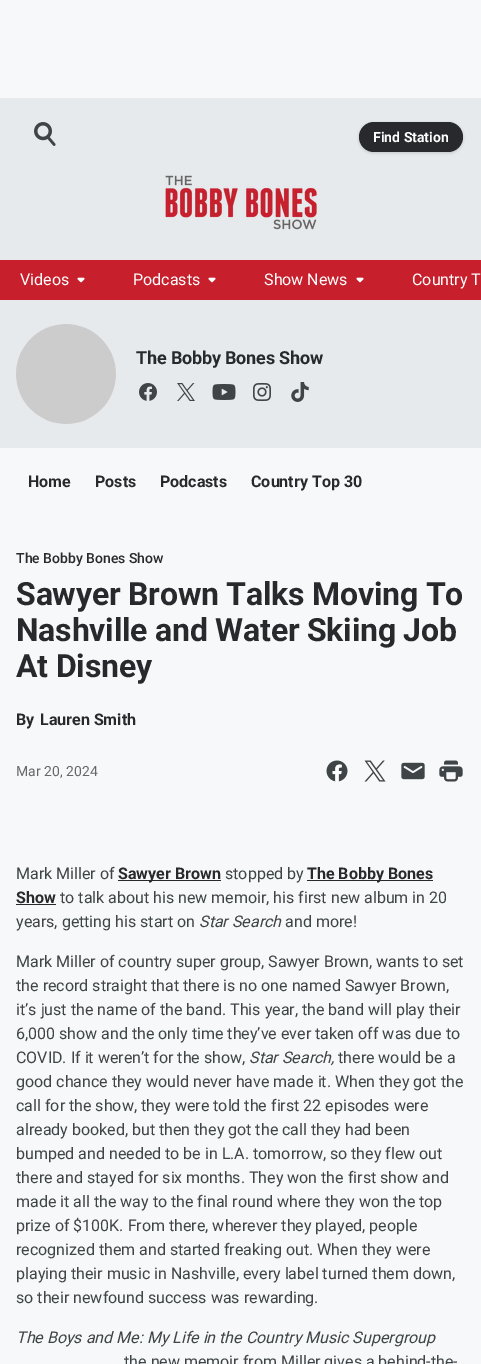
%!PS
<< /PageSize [481 1364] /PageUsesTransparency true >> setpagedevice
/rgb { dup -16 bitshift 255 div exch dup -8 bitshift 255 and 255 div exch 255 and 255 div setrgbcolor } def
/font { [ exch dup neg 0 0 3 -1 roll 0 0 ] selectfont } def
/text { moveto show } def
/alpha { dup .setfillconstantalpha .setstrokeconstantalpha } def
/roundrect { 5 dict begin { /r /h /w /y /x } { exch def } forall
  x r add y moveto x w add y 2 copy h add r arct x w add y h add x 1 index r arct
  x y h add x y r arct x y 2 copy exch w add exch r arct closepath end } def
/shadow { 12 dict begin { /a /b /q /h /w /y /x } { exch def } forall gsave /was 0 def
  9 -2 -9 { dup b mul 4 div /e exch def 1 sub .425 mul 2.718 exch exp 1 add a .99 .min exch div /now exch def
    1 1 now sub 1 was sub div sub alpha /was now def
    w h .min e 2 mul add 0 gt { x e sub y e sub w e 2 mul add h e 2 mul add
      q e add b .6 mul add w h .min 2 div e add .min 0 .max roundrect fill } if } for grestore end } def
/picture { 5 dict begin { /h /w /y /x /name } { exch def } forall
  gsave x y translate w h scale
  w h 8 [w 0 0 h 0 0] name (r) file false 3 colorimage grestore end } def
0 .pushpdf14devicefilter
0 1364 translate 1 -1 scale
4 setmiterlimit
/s1 { /Roboto-Bold 14 font 16#FFFFFF rgb } def
/s2 { /Roboto-Regular 16 font 16#FFFFFF rgb } def
/s3 { /Roboto-Bold 16 font 16#27292D rgb } def
/s4 { /Roboto-Medium 14 font 16#27292D rgb } def
/s5 { /Roboto-Regular 14 font 16#65676A rgb } def
/s6 { /Roboto-Regular 16 font 16#3F4447 rgb } def
/s7 { /Roboto-Italic 16 font 16#3F4447 rgb } def
16#F6F8F9 rgb
0 0 481 1364 rectfill
16#E6EAED rgb
0 98 481 162 rectfill
(pic1.raw) 34 122 22 24 picture
16#000000 rgb
359 123 104 30 15 1.5 0.15 shadow
16#27292D rgb
359 122 104 30 15 roundrect fill
s1
(Find Station) 373 142 text
(pic2.raw) 165 175 152 55 picture
16#C71F2B rgb
0 260 481 40 rectfill
s2
(Videos) 20 285 text
(pic3.raw) 77 277 8 6 picture
(Podcasts) 133 285 text
(pic3.raw) 208 277 8 6 picture
(Show News) 264 285 text
(pic3.raw) 356 277 8 6 picture
(Country T) 412 285 text
16#E6EAED rgb
0 300 481 148 rectfill
(pic4.raw) 16 324 100 100 picture
/Roboto-Bold 18 font
16#27292D rgb
136 364 moveto -0.2 0 (The Bobby Bones Show) ashow
(pic5.raw) 139 383 18 18 picture
(pic6.raw) 177 383 18 18 picture
(pic7.raw) 212 384 24 16 picture
(pic8.raw) 253 383 18 18 picture
(pic9.raw) 291 382 18 20 picture
s3
(Home) 28 487 text
(Posts) 95 487 text
(Podcasts) 160 487 text
(Country Top 30) 251 487 text
s4
(The Bobby Bones Show) 16 563 text
/Roboto-Bold 32 font
16 605 moveto -0.2 0 (Sawyer Brown Talks Moving To) ashow
16 641 moveto -0.2 0 (Nashville and Water Skiing Job) ashow
16 677 moveto -0.2 0 (At Disney) ashow
s3
(By) 16 725 text
(Lauren Smith) 40 725 text
s5
(Mar 20, 2024) 16 776 text
(pic10.raw) 326 760 22 22 picture
(pic11.raw) 364 760 22 22 picture
(pic12.raw) 401 762 24 18 picture
(pic13.raw) 439 760 24 22 picture
s6
(Mark Miller of) 16 879 text
16#27292D rgb
118 880 103 1 rectfill
s3
(Sawyer Brown) 118 879 text
s6
(stopped by) 225 879 text
16#27292D rgb
307 880 126 1 rectfill
s3
(The Bobby Bones) 307 879 text
(Show) 16 903 text
16 904 40 1 rectfill
s6
(to talk about his new memoir, his first new album in 20) 60 903 text
(years, getting his start on) 16 927 text
s7
(Star Search) 199 927 text
s6
(and more!) 285 927 text
(Mark Miller of country super group, Sawyer Brown, wants to set) 16 967 text
(the record straight that there is no one named Sawyer Brown,) 16 991 text
(it’s just the name of the band. This year, the band will play their) 16 1015 text
(6,000 show and the only time they’ve ever taken off was due to) 16 1039 text
(COVID. If it weren’t for the show,) 16 1063 text
s7
(Star Search,) 249 1063 text
s6
(there would be a) 338 1063 text
(good chance they would never have made it. When they got the) 16 1087 text
(call for the show, they were told the first 22 episodes were) 16 1111 text
(already booked, but then they got the call they had been) 16 1135 text
(bumped and needed to be in L.A. tomorrow, so they flew out) 16 1159 text
(there and stayed for six months. They won the first show and) 16 1183 text
(made it all the way to the final round where they won the top) 16 1207 text
(prize of $100K. From there, wherever they played, people) 16 1231 text
(recognized them and started freaking out. When they were) 16 1255 text
(playing their music in Nashville, every label turned them down,) 16 1279 text
(so their newfound success was rewarding.) 16 1303 text
s7
(The Boys and Me: My Life in the Country Music Supergroup) 16 1343 text
s6
(the new memoir from Miller gives a behind-the-) 124 1367 text
.poppdf14devicefilter showpage
